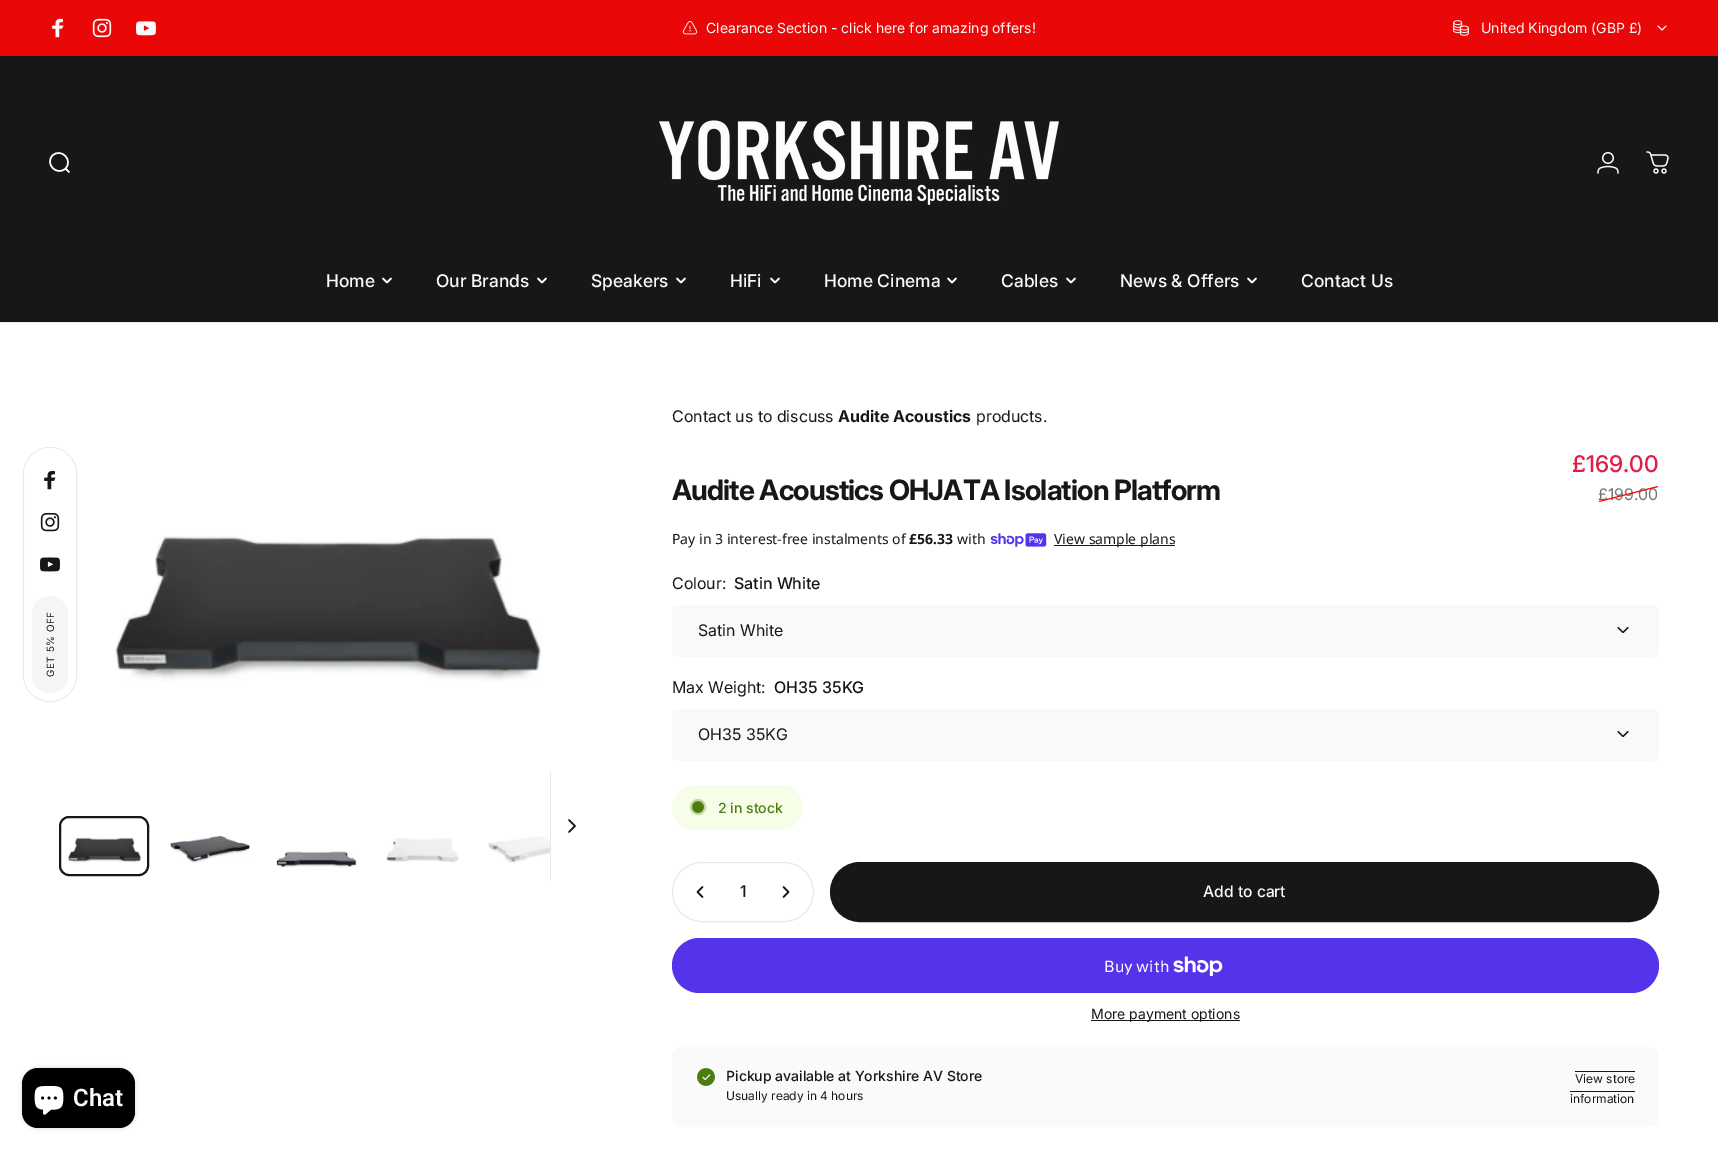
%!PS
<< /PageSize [1718 1149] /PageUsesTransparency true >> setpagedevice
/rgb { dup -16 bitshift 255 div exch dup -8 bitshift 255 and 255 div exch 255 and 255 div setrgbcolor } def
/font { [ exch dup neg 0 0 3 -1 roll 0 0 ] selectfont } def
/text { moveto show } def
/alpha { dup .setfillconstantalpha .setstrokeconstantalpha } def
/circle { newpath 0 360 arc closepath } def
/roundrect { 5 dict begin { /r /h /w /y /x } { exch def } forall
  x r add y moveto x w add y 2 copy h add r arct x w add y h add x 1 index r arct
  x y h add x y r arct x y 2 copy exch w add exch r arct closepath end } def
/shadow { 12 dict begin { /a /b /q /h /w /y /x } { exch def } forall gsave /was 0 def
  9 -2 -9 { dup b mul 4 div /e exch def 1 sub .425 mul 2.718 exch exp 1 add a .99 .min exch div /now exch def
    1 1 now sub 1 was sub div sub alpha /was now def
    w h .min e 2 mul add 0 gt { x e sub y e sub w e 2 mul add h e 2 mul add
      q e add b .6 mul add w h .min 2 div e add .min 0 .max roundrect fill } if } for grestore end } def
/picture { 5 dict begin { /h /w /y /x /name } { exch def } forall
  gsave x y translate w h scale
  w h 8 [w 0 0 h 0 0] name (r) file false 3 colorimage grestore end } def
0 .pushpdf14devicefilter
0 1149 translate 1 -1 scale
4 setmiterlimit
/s1 { /Inter-Regular 14 font 16#FAFAFA rgb } def
/s2 { /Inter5-Medium 17.5 font 16#FAFAFA rgb } def
/s3 { /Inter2-Regular 16 font 16#171717 rgb } def
/s4 { /Inter-Bold 16 font 16#171717 rgb } def
/s5 { /Inter-Medium 23 font 16#E11D48 rgb } def
/s6 { /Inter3-Regular 16 font 16#747474 rgb } def
/s7 { /NotoSans-Regular 14 font 16#171717 rgb } def
/s8 { /NotoSans-Bold 14 font 16#171717 rgb } def
/s9 { /Inter2-Medium 16 font 16#171717 rgb } def
/s10 { /Inter3-Medium 14 font 16#4D7C0F rgb } def
/s11 { /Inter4-Medium 15.75 font 16#FAFAFA rgb } def
/s12 { /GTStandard-Regular 16 font 16#FAFAFA rgb } def
/s13 { /Inter-Regular 14 font 16#171717 rgb } def
/s14 { /Inter3-Medium 14 font 16#171717 rgb } def
/s15 { /Inter-Regular 12 font 16#171717 rgb } def
/s16 { /Roboto-SemiBold 24 font 16#FAFAFA rgb } def
16#FFFFFF rgb
0 0 1718 1149 rectfill
16#EA0707 rgb
0 0 1718 56 rectfill
(pic1.raw) 52 18 12 20 picture
(pic2.raw) 92 18 20 20 picture
(pic3.raw) 136 21 20 15 picture
(pic4.raw) 682 21 16 14 picture
s1
(Clearance Section - click here for amazing offers!) 706 33 text
(pic5.raw) 1453 20 16 16 picture
(United Kingdom \(GBP £\)) 1481 33 text
1 setlinecap
1 setlinejoin
1658 26 moveto 1662 30 lineto 1666 26 lineto stroke
16#171717 rgb
0 56 1718 266 rectfill
16#FFFFFF rgb
1.5 setlinewidth
0 setlinejoin
69 172 moveto 65.5 168.5 lineto 65.5 168.5 moveto 73.5 160 61 147.5 52.5 155.5 curveto 44.5 164 57 176.5 65.5 168.5 curveto closepath stroke
(pic6.raw) 659 120 400 85 picture
(pic7.raw) 1597 152 22 22 picture
(pic8.raw) 1646 151 23 23 picture
s2
(Home) 326 287 text
16#FFFFFF rgb
1 setlinejoin
383 278.5 moveto 387 282.5 lineto 391 278.5 lineto stroke
s2
(Our Brands) 436 287 text
16#FFFFFF rgb
538 278.5 moveto 542 282.5 lineto 546 278.5 lineto stroke
s2
(Speakers) 591 287 text
16#FFFFFF rgb
677 278.5 moveto 681 282.5 lineto 685 278.5 lineto stroke
s2
(HiFi) 730 287 text
16#FFFFFF rgb
771 278.5 moveto 775 282.5 lineto 779 278.5 lineto stroke
s2
(Home Cinema) 824 287 text
16#FFFFFF rgb
948 278.5 moveto 952 282.5 lineto 956 278.5 lineto stroke
s2
(Cables) 1001 287 text
16#FFFFFF rgb
1067 278.5 moveto 1071 282.5 lineto 1075 278.5 lineto stroke
s2
(News & Offers) 1120 287 text
16#FFFFFF rgb
1248 278.5 moveto 1252 282.5 lineto 1256 278.5 lineto stroke
s2
(Contact Us) 1301 287 text
16#E8E8E8 rgb
1 setlinewidth
0 setlinecap
0 setlinejoin
23.5 447.5 53 254 26.5 roundrect stroke
0.8 alpha
16#FFFFFF rgb
24 448 52 253 26 roundrect fill
1 alpha
(pic9.raw) 44 470 12 20 picture
(pic10.raw) 40 512 20 20 picture
(pic11.raw) 40 557 20 15 picture
16#F5F5F5 rgb
50 693 moveto 40 693 32 685 32 675 curveto 32 614 lineto 32 604 40 596 50 596 curveto 60 596 68 604 68 614 curveto 68 675 lineto 68 685 60 693 50 693 curveto closepath fill
/Inter-Regular 10 font
16#171717 rgb
gsave 54 677 translate -90 rotate 0 0 moveto 0.5 0 (GET 5% OFF) ashow grestore
16#E8E8E8 rgb
0 322 1718 1 rectfill
(pic12.raw) 114 535 427 147 picture
(pic13.raw) 66 837 76 26 picture
16#171717 rgb
2 setlinewidth
60 817 88 58 9 roundrect stroke
(pic14.raw) 170 835 80 28 picture
(pic15.raw) 276 851 81 17 picture
(pic16.raw) 386 838 73 25 picture
(pic17.raw) 488 836 62 27 picture
16#E8E8E8 rgb
550 771 1 110 rectfill
16#171717 rgb
1.5 setlinewidth
1 setlinecap
1 setlinejoin
569 820 moveto 575 826 lineto 569 832 lineto stroke
s3
(Contact us to discuss) 672 422 text
s4
(Audite Acoustics) 838 422 text
s3
(products.) 976 422 text
/Inter2-Bold 28 font
672 500 moveto -0.85 0 (Audite Acoustics OHJATA Isolation Platform) ashow
s5
(£169.00) 1572 472 text
s6
(£199.00) 1598 500 text
16#FF0000 rgb
1599 501 moveto 1658 486 lineto 1658 487 lineto 1599 502 lineto closepath fill
s7
(Pay in 3 interest-free instalments of) 672 544 text
s8
(£56.33) 909 544 text
s7
(with) 957 544 text
(pic18.raw) 990 533 57 14 picture
1054 545 121 1 rectfill
(View sample plans) 1054 544 text
s3
(Colour:) 672 589 text
s9
(Satin White) 734 589 text
16#F9F9F9 rgb
672 605 987 52 6 roundrect fill
s3
(Satin White) 698 636 text
1.2 setlinewidth
1618 627.5 moveto 1623 632.5 lineto 1628 627.5 lineto stroke
(Max Weight:) 672 693 text
s9
(OH35 35KG) 774 693 text
16#F9F9F9 rgb
672 709 987 52 6 roundrect fill
s3
(OH35 35KG) 698 740 text
1618 731.5 moveto 1623 736.5 lineto 1628 731.5 lineto stroke
16#F7FEE7 rgb
672 785 131 45 22.5 roundrect fill
16#4D7C0F rgb
698 807 5 circle gsave fill grestore
1.5 setlinewidth
0 setlinecap
0 setlinejoin
stroke
0.3 alpha
3 setlinewidth
698 807 6.5 circle stroke
1 alpha
s10
(2 in stock) 718 813 text
16#E8E8E8 rgb
1 setlinewidth
672.5 862.5 141 59 29.5 roundrect stroke
16#171717 rgb
1.7 setlinewidth
1 setlinecap
1 setlinejoin
702.5 887 moveto 697.5 892 lineto 702.5 897 lineto stroke
s9
(1) 740 897 text
783.5 887 moveto 788.5 892 lineto 783.5 897 lineto stroke
831 863 827 58 29 roundrect gsave fill grestore
2 setlinewidth
0 setlinecap
0 setlinejoin
stroke
s11
(Add to cart) 1203 897 text
16#5433EB rgb
672 938 987 55 27.5 roundrect fill
s12
(Buy with) 1104 972 text
(pic19.raw) 1173 956 50 20 picture
16#171717 rgb
1091 1020 149 1 rectfill
s13
(More payment options) 1091 1019 text
16#FAFAFA rgb
672 1047 987 80 10 roundrect fill
(pic20.raw) 697 1068 18 18 picture
s14
(Pickup available at Yorkshire AV Store) 726 1081 text
s15
(Usually ready in 4 hours) 726 1100 text
(View store) 1575 1083 text
1575 1071 60 1 rectfill
(information) 1570 1103 text
1570 1091 65 1 rectfill
16#000000 rgb
22 1068 113 60 16 2.5 0.15 shadow
22 1068 113 60 16 roundrect fill
(pic21.raw) 34 1086 30 29 picture
s16
(Chat) 73 1106 text
.poppdf14devicefilter showpage
